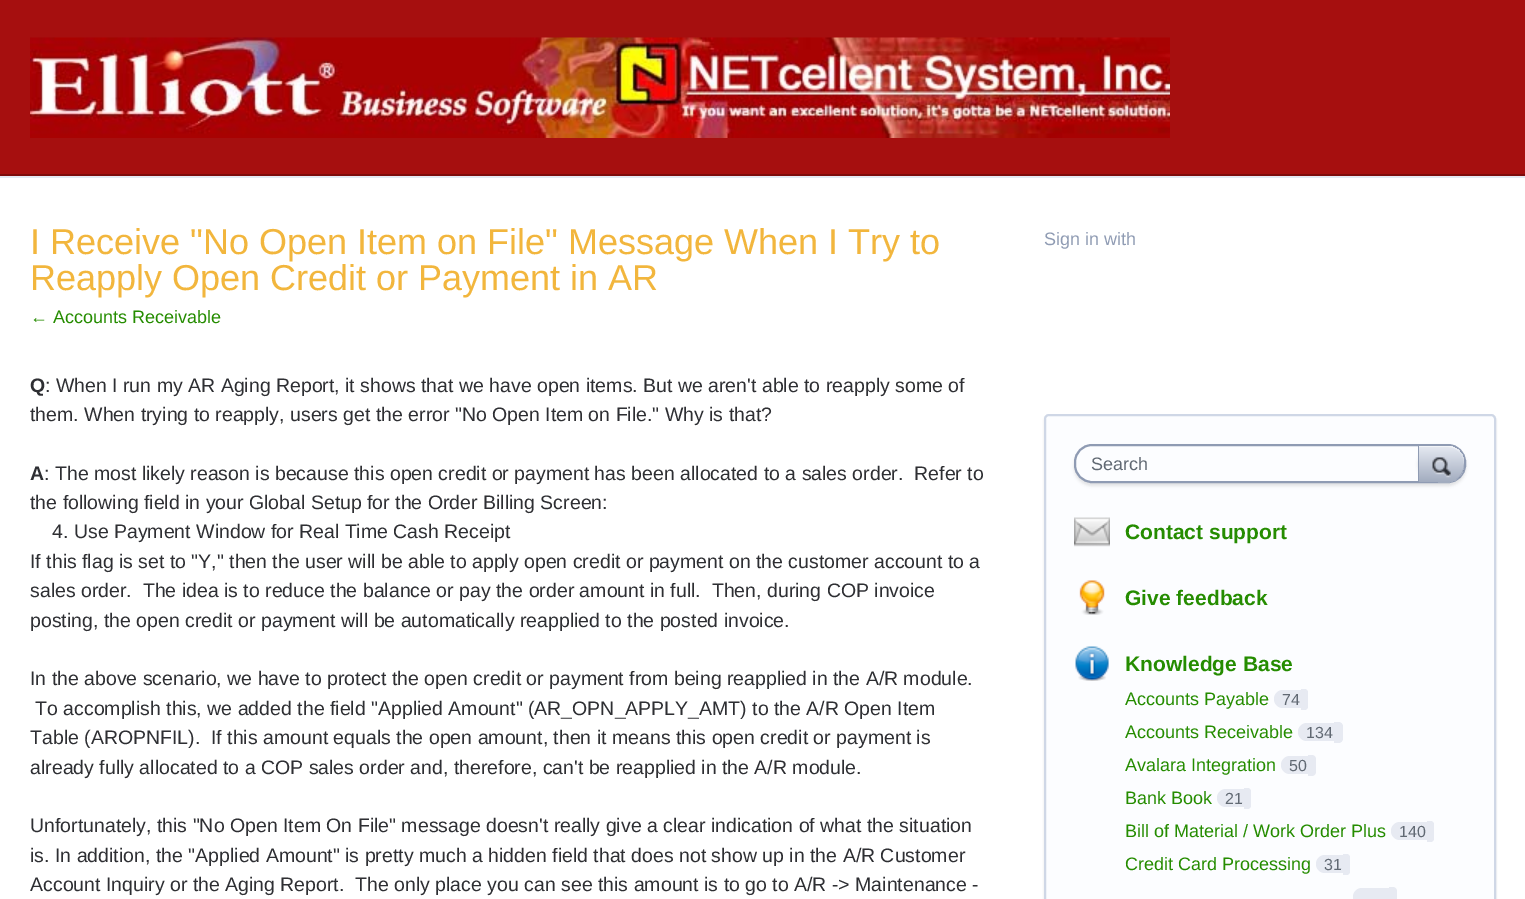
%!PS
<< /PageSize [1525 899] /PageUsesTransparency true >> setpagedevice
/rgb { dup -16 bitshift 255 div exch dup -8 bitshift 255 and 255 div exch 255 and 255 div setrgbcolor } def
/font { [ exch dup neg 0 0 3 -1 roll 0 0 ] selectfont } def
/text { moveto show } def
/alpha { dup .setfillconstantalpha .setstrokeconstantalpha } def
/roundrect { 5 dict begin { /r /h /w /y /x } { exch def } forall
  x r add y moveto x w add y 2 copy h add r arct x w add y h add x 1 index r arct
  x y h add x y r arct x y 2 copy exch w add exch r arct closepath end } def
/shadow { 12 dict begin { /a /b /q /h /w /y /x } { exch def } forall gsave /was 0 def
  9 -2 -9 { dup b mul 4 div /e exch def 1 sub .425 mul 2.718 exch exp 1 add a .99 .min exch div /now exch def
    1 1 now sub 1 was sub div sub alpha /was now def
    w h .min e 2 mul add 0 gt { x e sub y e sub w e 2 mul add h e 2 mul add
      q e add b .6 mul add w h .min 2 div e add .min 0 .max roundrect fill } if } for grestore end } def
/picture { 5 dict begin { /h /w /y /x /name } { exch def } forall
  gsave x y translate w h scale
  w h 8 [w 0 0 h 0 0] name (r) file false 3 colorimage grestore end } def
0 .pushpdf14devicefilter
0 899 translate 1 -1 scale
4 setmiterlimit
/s1 { /LiberationSans-Regular 36 font 16#F2B63D rgb } def
/s2 { /LiberationSans-Regular 18 font 16#258C00 rgb } def
/s3 { /LiberationSans-Bold 19.5 font 16#2E2F33 rgb } def
/s4 { /LiberationSans-Regular 19.5 font 16#2E2F33 rgb } def
/s5 { /LiberationSans-Regular 18 font 16#8F9BB3 rgb } def
/s6 { /LiberationSans-Regular 18 font 16#616973 rgb } def
/s7 { /LiberationSans-Bold 21 font 16#258C00 rgb } def
/s8 { /LiberationSans-Regular 16 font 16#616973 rgb } def
16#FFFFFF rgb
0 0 1525 899 rectfill
16#A60F0F rgb
0 0 1525 174 rectfill
16#7D0B0B rgb
0 174 1525 2 rectfill
(pic1.raw) 30 37 1140 101 picture
16#E3E8F2 rgb
0 176 1525 2 rectfill
s1
(I Receive "No Open Item on File" Message When I Try to) 30 254 text
(Reapply Open Credit or Payment in AR) 30 290 text
s2
(← Accounts Receivable) 30 323 text
s3
(Q) 30 392 text
s4
(: When I run my AR Aging Report, it shows that we have open items. But we aren't able to reapply some of) 45 392 text
(them. When trying to reapply, users get the error "No Open Item on File." Why is that?) 30 421 text
s3
(A) 30 480 text
s4
(: The most likely reason is because this open credit or payment has been allocated to a sales order.  Refer to) 44 480 text
(the following field in your Global Setup for the Order Billing Screen:) 30 509 text
(4. Use Payment Window for Real Time Cash Receipt) 52 538 text
(If this flag is set to "Y," then the user will be able to apply open credit or payment on the customer account to a) 30 568 text
(sales order.  The idea is to reduce the balance or pay the order amount in full.  Then, during COP invoice) 30 597 text
(posting, the open credit or payment will be automatically reapplied to the posted invoice.) 30 627 text
(In the above scenario, we have to protect the open credit or payment from being reapplied in the A/R module.) 30 685 text
(To accomplish this, we added the field "Applied Amount" \(AR_OPN_APPLY_AMT\) to the A/R Open Item) 35 715 text
(Table \(AROPNFIL\).  If this amount equals the open amount, then it means this open credit or payment is) 30 744 text
(already fully allocated to a COP sales order and, therefore, can't be reapplied in the A/R module.) 30 774 text
(Unfortunately, this "No Open Item On File" message doesn't really give a clear indication of what the situation) 30 832 text
(is. In addition, the "Applied Amount" is pretty much a hidden field that does not show up in the A/R Customer) 30 862 text
(Account Inquiry or the Aging Report.  The only place you can see this amount is to go to A/R -> Maintenance -) 30 891 text
s5
(Sign in with) 1044 245 text
16#000000 rgb
1044 416 452 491 5 1 0.1 shadow
16#FCFDFF rgb
1045 415 450 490 4 roundrect gsave fill grestore
16#CFD7E6 rgb
2 setlinewidth
stroke
16#000000 rgb
1074 447 392 39 18 1.5 0.1 shadow
16#FCFDFF rgb
1075 445 390 37 17 roundrect gsave fill grestore
16#8F9BB3 rgb
stroke
s6
(Search) 1091 470 text
gsave
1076 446 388 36 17 roundrect clip newpath
16#000000 rgb
1418 446 48 37 18 1.5 0.1 shadow
grestore
gsave 1419 446 moveto 1419 482 lineto 1438 482 lineto 1443 482 1448 483 1453 481 curveto 1470 474 1467 446 1447 446 curveto closepath clip newpath
<< /ShadingType 2 /ColorSpace /DeviceRGB /Coords [1419 446 1419 482] /Extend [true true] /Function << /FunctionType 2 /Domain [0 1] /C0 [0.902 0.918 0.949] /C1 [0.635 0.675 0.749] /N 1 >> >> shfill grestore
0.5 alpha
16#FFFFFF rgb
1419 447 moveto 1448 447 lineto 1457 447 1464 454 1464 464 curveto 1464 456 1459 448 1450 446 curveto 1419 446 lineto closepath fill
1 alpha
16#8F9BB3 rgb
1456 479.5 moveto 1461.5 476 1464 470 1464 464 curveto 1464 470 1461 476 1456 479.5 curveto closepath fill
1418 446 1 36 rectfill
(pic2.raw) 1432 457 19 21 picture
(pic3.raw) 1074 517 36 30 picture
s7
(Contact support) 1125 539 text
(pic4.raw) 1079 580 26 35 picture
(Give feedback) 1125 605 text
(pic5.raw) 1075 646 34 35 picture
(Knowledge Base) 1125 671 text
s2
(Accounts Payable) 1125 705 text
16#E7EAF2 rgb
1283 690 moveto 1301 690 lineto 1301 708 lineto 1283 708 lineto 1278 708 1274 704 1274 699 curveto 1274 694 1278 690 1283 690 curveto closepath fill
s8
(74) 1282 705 text
16#E7EAF2 rgb
1301 689 moveto 1304.5 689 lineto 1306.5 689 1308 690.5 1308 692.5 curveto 1308 706.5 lineto 1308 708.5 1306.5 710 1304.5 710 curveto 1301 710 lineto closepath fill
s2
(Accounts Receivable) 1125 738 text
16#E7EAF2 rgb
1307 723 moveto 1334 723 lineto 1334 741 lineto 1307 741 lineto 1302 741 1298 737 1298 732 curveto 1298 727 1302 723 1307 723 curveto closepath fill
s8
(134) 1306 738 text
16#E7EAF2 rgb
1334 722 moveto 1338.5 722 lineto 1341 722 1343 724 1343 726.5 curveto 1343 738.5 lineto 1343 741 1341 743 1338.5 743 curveto 1334 743 lineto closepath fill
s2
(Avalara Integration) 1125 771 text
16#E7EAF2 rgb
1290 756 moveto 1308 756 lineto 1308 774 lineto 1290 774 lineto 1285 774 1281 770 1281 765 curveto 1281 760 1285 756 1290 756 curveto closepath fill
s8
(50) 1289 771 text
16#E7EAF2 rgb
1308 755 moveto 1312 755 lineto 1314 755 1316 757 1316 759 curveto 1316 772 lineto 1316 774 1314 776 1312 776 curveto 1308 776 lineto closepath fill
s2
(Bank Book) 1125 804 text
16#E7EAF2 rgb
1226 789 moveto 1244 789 lineto 1244 807 lineto 1226 807 lineto 1221 807 1217 803 1217 798 curveto 1217 793 1221 789 1226 789 curveto closepath fill
s8
(21) 1225 804 text
16#E7EAF2 rgb
1244 788 moveto 1247.5 788 lineto 1249.5 788 1251 789.5 1251 791.5 curveto 1251 805.5 lineto 1251 807.5 1249.5 809 1247.5 809 curveto 1244 809 lineto closepath fill
s2
(Bill of Material / Work Order Plus) 1125 837 text
16#E7EAF2 rgb
1400 822 moveto 1427 822 lineto 1427 840 lineto 1400 840 lineto 1395 840 1391 836 1391 831 curveto 1391 826 1395 822 1400 822 curveto closepath fill
s8
(140) 1399 837 text
16#E7EAF2 rgb
1427 821 moveto 1430.5 821 lineto 1432.5 821 1434 822.5 1434 824.5 curveto 1434 838.5 lineto 1434 840.5 1432.5 842 1430.5 842 curveto 1427 842 lineto closepath fill
s2
(Credit Card Processing) 1125 870 text
16#E7EAF2 rgb
1325 855 moveto 1343 855 lineto 1343 873 lineto 1325 873 lineto 1320 873 1316 869 1316 864 curveto 1316 859 1320 855 1325 855 curveto closepath fill
s8
(31) 1324 870 text
16#E7EAF2 rgb
1343 854 moveto 1346.5 854 lineto 1348.5 854 1350 855.5 1350 857.5 curveto 1350 871.5 lineto 1350 873.5 1348.5 875 1346.5 875 curveto 1343 875 lineto closepath fill
1362 888 moveto 1389 888 lineto 1389 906 lineto 1362 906 lineto 1357 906 1353 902 1353 897 curveto 1353 892 1357 888 1362 888 curveto closepath fill
1389 887 moveto 1393 887 lineto 1395 887 1397 889 1397 891 curveto 1397 899 lineto 1397 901 1395 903 1393 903 curveto 1389 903 lineto closepath fill
.poppdf14devicefilter showpage
